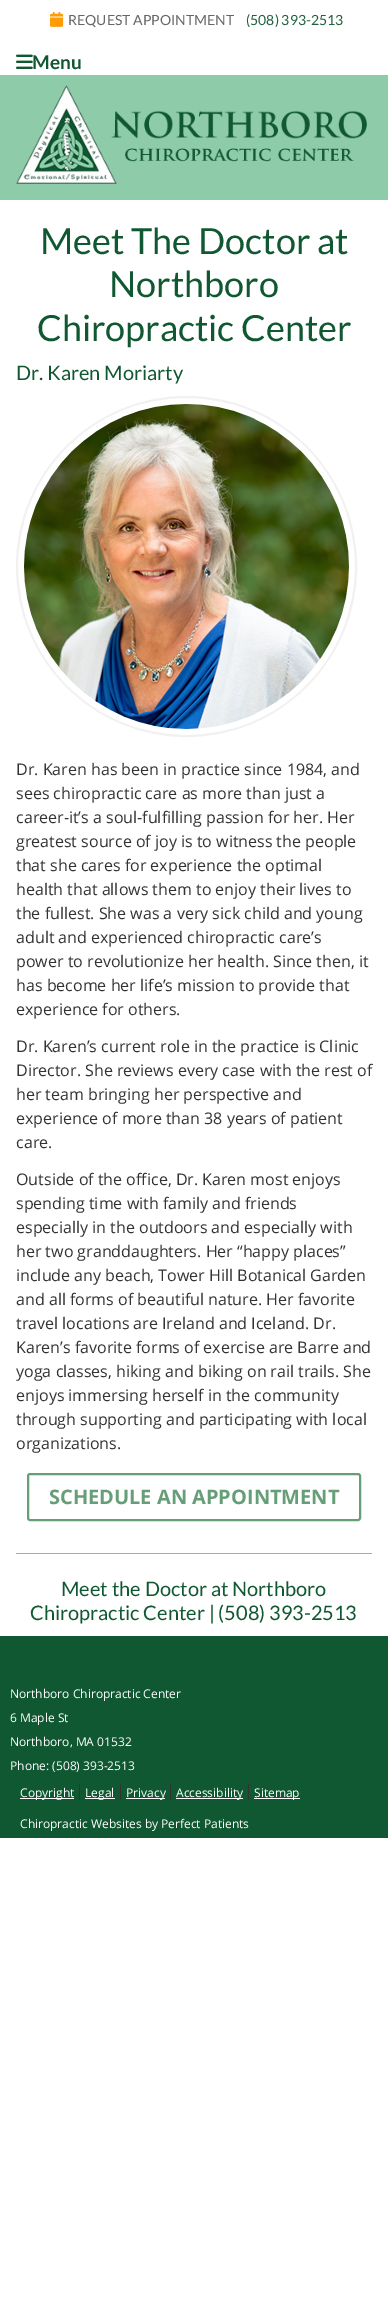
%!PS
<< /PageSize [388 2301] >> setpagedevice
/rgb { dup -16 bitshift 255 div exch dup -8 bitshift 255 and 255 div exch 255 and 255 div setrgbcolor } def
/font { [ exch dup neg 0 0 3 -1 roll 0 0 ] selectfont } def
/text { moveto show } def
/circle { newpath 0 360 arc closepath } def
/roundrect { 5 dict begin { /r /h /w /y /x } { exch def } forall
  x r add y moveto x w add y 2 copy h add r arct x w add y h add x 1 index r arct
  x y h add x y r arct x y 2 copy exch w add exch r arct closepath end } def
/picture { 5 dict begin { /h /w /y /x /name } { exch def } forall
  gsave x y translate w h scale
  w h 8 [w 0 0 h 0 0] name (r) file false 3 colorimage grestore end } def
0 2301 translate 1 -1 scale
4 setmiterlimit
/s1 { /Lato-Regular 14 font 16#666666 rgb } def
/s2 { /Lato-Regular 14 font 16#1F623F rgb } def
/s3 { /Lato-Bold 19 font 16#105832 rgb } def
/s4 { /Lato-Regular 36 font 16#105832 rgb } def
/s5 { /Lato-Regular 20 font 16#105832 rgb } def
/s6 { /OpenSans-Regular 16 font 16#333333 rgb } def
/s7 { /OpenSans-Bold 20 font 16#669E78 rgb } def
/s8 { /OpenSans-Regular 12 font 16#FFFFFF rgb } def
16#FFFFFF rgb
0 0 388 2301 rectfill
(pic1.raw) 50 11 14 16 picture
s1
(REQUEST APPOINTMENT) 68 25 text
s2
(\(508\) 393-2513) 246 25 text
(pic2.raw) 16 54 17 15 picture
s3
(Menu) 32 69 text
16#8ECBA9 rgb
0 75 388 125 rectfill
(pic3.raw) 16 85 351 99 picture
s4
(Meet The Doctor at) 40 254 text
(Northboro) 109 297 text
(Chiropractic Center) 37 341 text
s5
(Dr. Karen Moriarty) 16 380 text
16#F1F1F1 rgb
2 setlinewidth
186.5 566.5 169.5 circle stroke
(pic4.raw) 24 404 325 325 picture
s6
(Dr. Karen has been in practice since 1984, and) 16 775 text
(sees chiropractic care as more than just a) 16 799 text
(career-it’s a soul-fulfilling passion for her. Her) 16 823 text
(greatest source of joy is to witness the people) 16 847 text
(that she cares for experience the optimal) 16 871 text
(health that allows them to enjoy their lives to) 16 895 text
(the fullest. She was a very sick child and young) 16 919 text
(adult and experienced chiropractic care’s) 16 943 text
(power to revolutionize her health. Since then, it) 16 967 text
(has become her life’s mission to provide that) 16 991 text
(experience for others.) 16 1015 text
(Dr. Karen’s current role in the practice is Clinic) 16 1052 text
(Director. She reviews every case with the rest of) 16 1076 text
(her team bringing her perspective and) 16 1100 text
(experience of more than 38 years of patient) 16 1124 text
(care.) 16 1148 text
(Outside of the office, Dr. Karen most enjoys) 16 1185 text
(spending time with family and friends) 16 1209 text
(especially in the outdoors and especially with) 16 1233 text
(her two granddaughters. Her “happy places”) 16 1257 text
(include any beach, Tower Hill Botanical Garden) 16 1281 text
(and all forms of beautiful nature. Her favorite) 16 1305 text
(travel locations are Ireland and Iceland. Dr.) 16 1329 text
(Karen’s favorite forms of exercise are Barre and) 16 1353 text
(yoga classes, hiking and biking on rail trails. She) 16 1377 text
(enjoys immersing herself in the community) 16 1401 text
(through supporting and participating with local) 16 1425 text
(organizations.) 16 1449 text
16#669E78 rgb
28 1474 332 46 2 roundrect stroke
s7
(SCHEDULE AN APPOINTMENT) 49 1504 text
16#AAAAAA rgb
16 1553 356 1 rectfill
s5
(Meet the Doctor at Northboro) 61 1596 text
(Chiropractic Center | \(508\) 393-2513) 30 1620 text
0 1636 388 202 rectfill
s8
(Northboro Chiropractic Center) 10 1698 text
(6 Maple St) 10 1722 text
(Northboro, MA 01532) 10 1746 text
(Phone: \(508\) 393-2513) 10 1770 text
20 1798 54 1 rectfill
(Copyright) 20 1797 text
16#333333 rgb
79 1784 1 16 rectfill
16#FFFFFF rgb
85 1798 30 1 rectfill
(Legal) 85 1797 text
16#333333 rgb
120 1784 1 16 rectfill
16#FFFFFF rgb
126 1798 39 1 rectfill
(Privacy) 126 1797 text
16#333333 rgb
170 1784 1 16 rectfill
16#FFFFFF rgb
176 1798 67 1 rectfill
(Accessibility) 176 1797 text
16#333333 rgb
248 1784 1 16 rectfill
16#FFFFFF rgb
254 1798 46 1 rectfill
(Sitemap) 254 1797 text
(Chiropractic Websites by Perfect Patients) 20 1828 text
showpage
